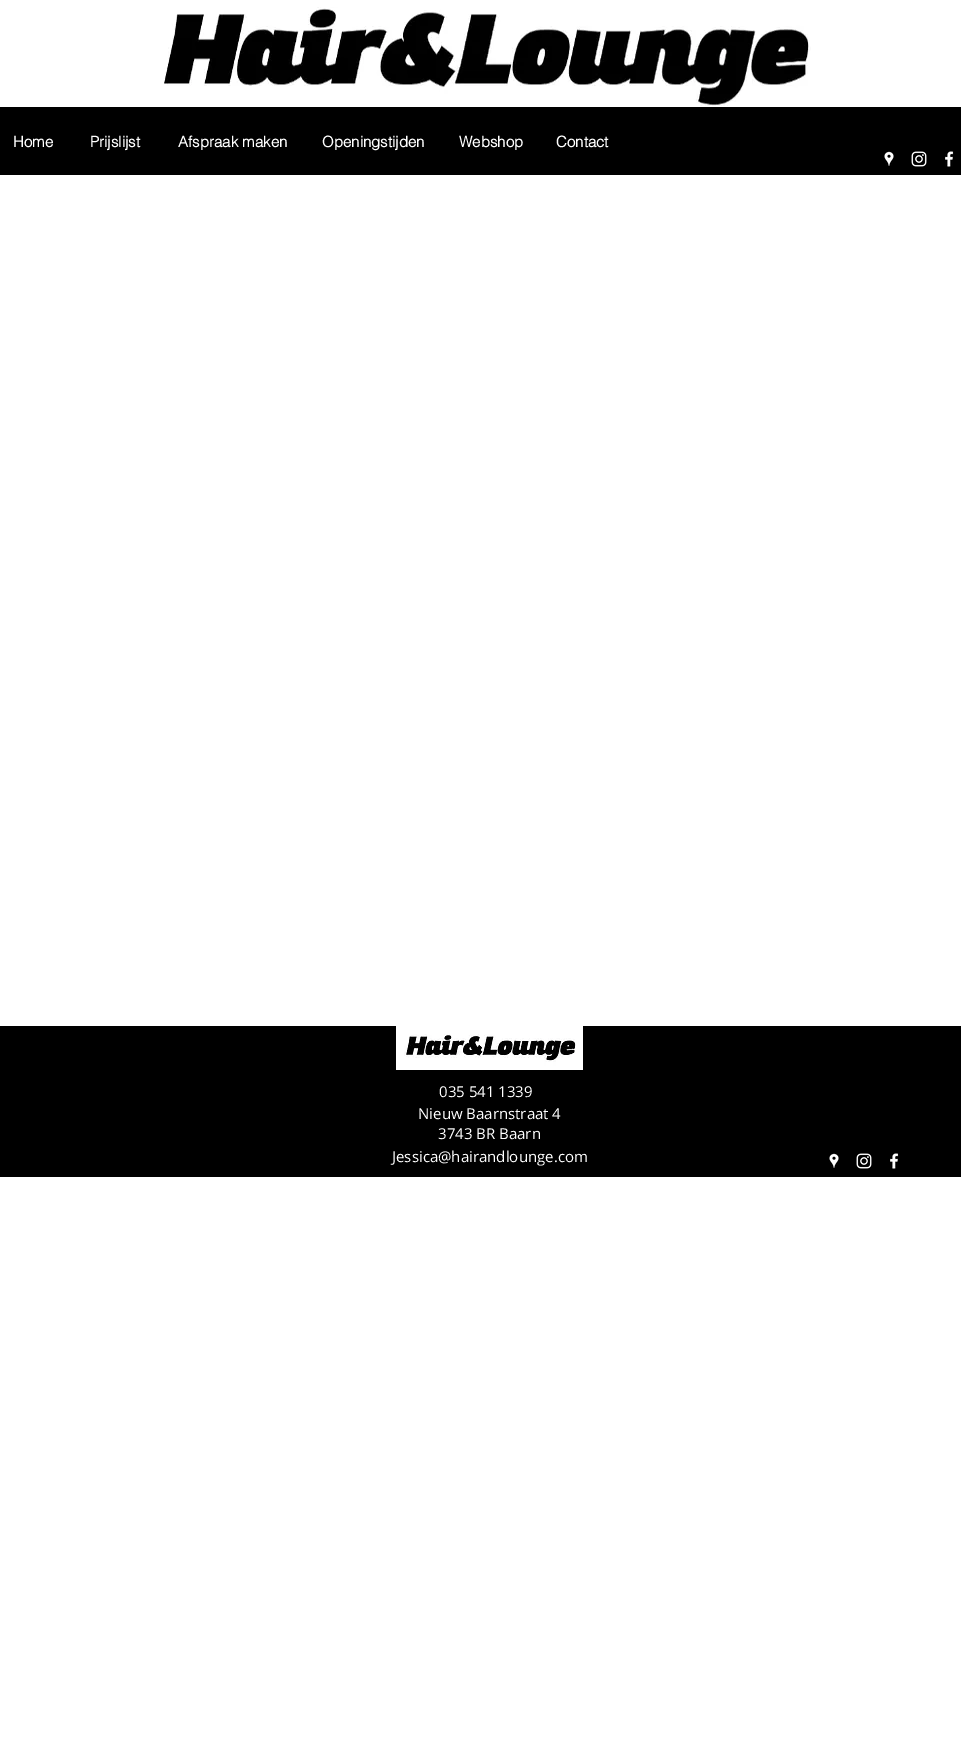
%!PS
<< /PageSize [961 1751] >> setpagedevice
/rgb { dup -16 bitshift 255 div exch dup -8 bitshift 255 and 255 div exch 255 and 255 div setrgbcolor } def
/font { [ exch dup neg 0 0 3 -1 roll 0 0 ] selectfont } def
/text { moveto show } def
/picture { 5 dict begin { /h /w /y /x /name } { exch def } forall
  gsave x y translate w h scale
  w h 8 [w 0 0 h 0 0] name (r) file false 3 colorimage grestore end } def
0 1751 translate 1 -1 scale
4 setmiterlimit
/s1 { /helvetica-Bold 15 font 16#FFFFFF rgb } def
/s2 { /OpenSans-Regular 15 font 16#FFFFFF rgb } def
16#FFFFFF rgb
0 0 961 1751 rectfill
(pic1.raw) 164 7 647 99 picture
16#000000 rgb
0 107 961 68 rectfill
s1
(Home) 13 147 text
(Prijslijst) 90 147 text
(Afspraak maken) 178 147 text
(Openingstijden) 322 147 text
(Webshop) 459 147 text
(Contact) 556 147 text
(pic2.raw) 884 151 10 15 picture
(pic3.raw) 911 151 16 16 picture
(pic4.raw) 945 151 9 16 picture
16#000000 rgb
0 1026 961 151 rectfill
(pic5.raw) 396 1026 187 44 picture
s2
(035 541 1339) 439 1097 text
(Nieuw Baarnstraat 4) 418 1119 text
(3743 BR Baarn) 438 1139 text
(Jessica@hairandlounge.com) 392 1162 text
(pic2.raw) 829 1153 10 15 picture
(pic3.raw) 856 1153 16 16 picture
(pic4.raw) 890 1153 9 16 picture
showpage
